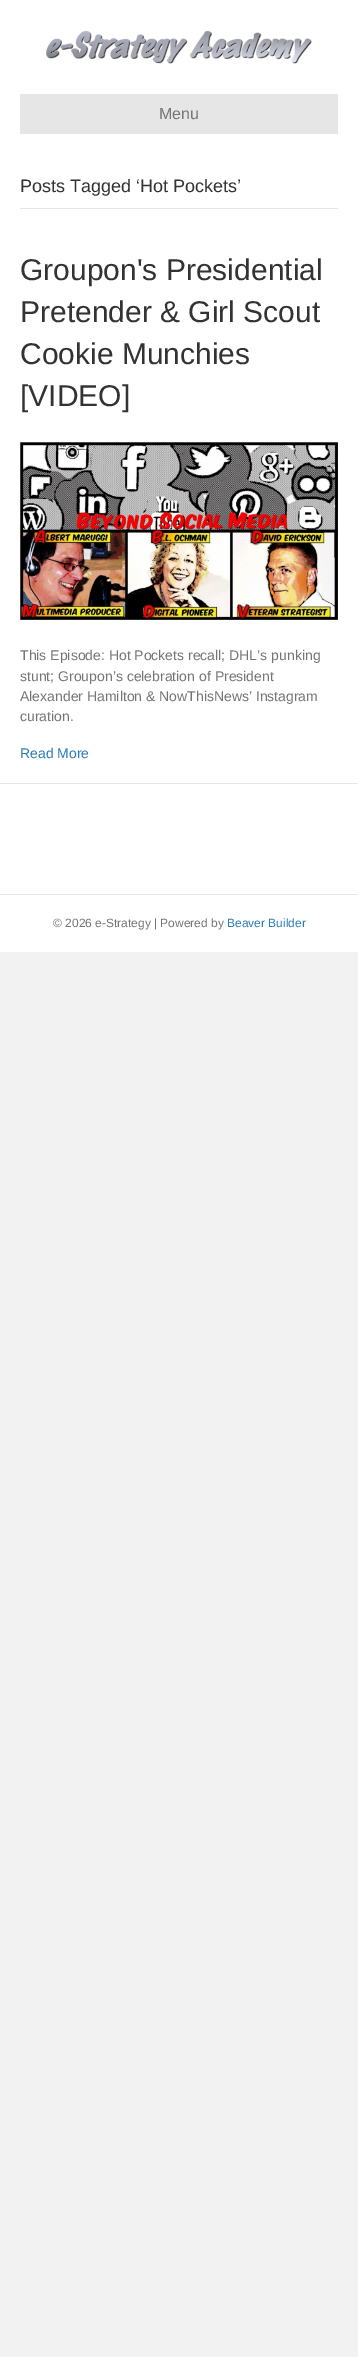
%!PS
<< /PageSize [358 2357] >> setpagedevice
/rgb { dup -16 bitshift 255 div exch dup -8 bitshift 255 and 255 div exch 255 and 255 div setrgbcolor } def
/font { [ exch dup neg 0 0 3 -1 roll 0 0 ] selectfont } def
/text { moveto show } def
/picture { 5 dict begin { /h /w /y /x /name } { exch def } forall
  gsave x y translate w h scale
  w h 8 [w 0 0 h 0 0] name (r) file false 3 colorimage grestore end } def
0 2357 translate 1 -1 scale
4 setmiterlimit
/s1 { /LiberationSans-Regular 16 font 16#757575 rgb } def
/s2 { /LiberationSans-Regular 18 font 16#333333 rgb } def
/s3 { /LiberationSans-Regular 30 font 16#333333 rgb } def
/s4 { /LiberationSans-Regular 14 font 16#757575 rgb } def
/s5 { /LiberationSans-Regular 14 font 16#2B7BB9 rgb } def
/s6 { /LiberationSans-Regular 12 font 16#757575 rgb } def
/s7 { /LiberationSans-Regular 12 font 16#2B7BB9 rgb } def
16#F2F2F2 rgb
0 0 358 2357 rectfill
16#FFFFFF rgb
0 0 358 783 rectfill
(pic1.raw) 46 30 266 34 picture
16#E6E6E6 rgb
20 94 318 40 rectfill
s1
(Menu) 159 119 text
16#E6E6E6 rgb
20 208 318 1 rectfill
s2
(Posts Tagged ‘Hot Pockets’) 20 192 text
s3
(Groupon's Presidential) 20 280 text
(Pretender & Girl Scout) 20 322 text
(Cookie Munchies) 20 364 text
([VIDEO]) 20 406 text
(pic2.raw) 20 442 318 178 picture
s4
(This Episode: Hot Pockets recall; DHL’s punking) 20 660 text
(stunt; Groupon’s celebration of President) 20 681 text
(Alexander Hamilton & NowThisNews’ Instagram) 20 701 text
(curation.) 20 721 text
s5
(Read More) 20 758 text
16#FFFFFF rgb
0 784 358 110 rectfill
16#E6E6E6 rgb
0 783 358 1 rectfill
16#FFFFFF rgb
0 895 358 57 rectfill
16#E6E6E6 rgb
0 894 358 1 rectfill
s6
(© 2026 e-Strategy | Powered by) 53 927 text
s7
(Beaver Builder) 227 927 text
showpage
